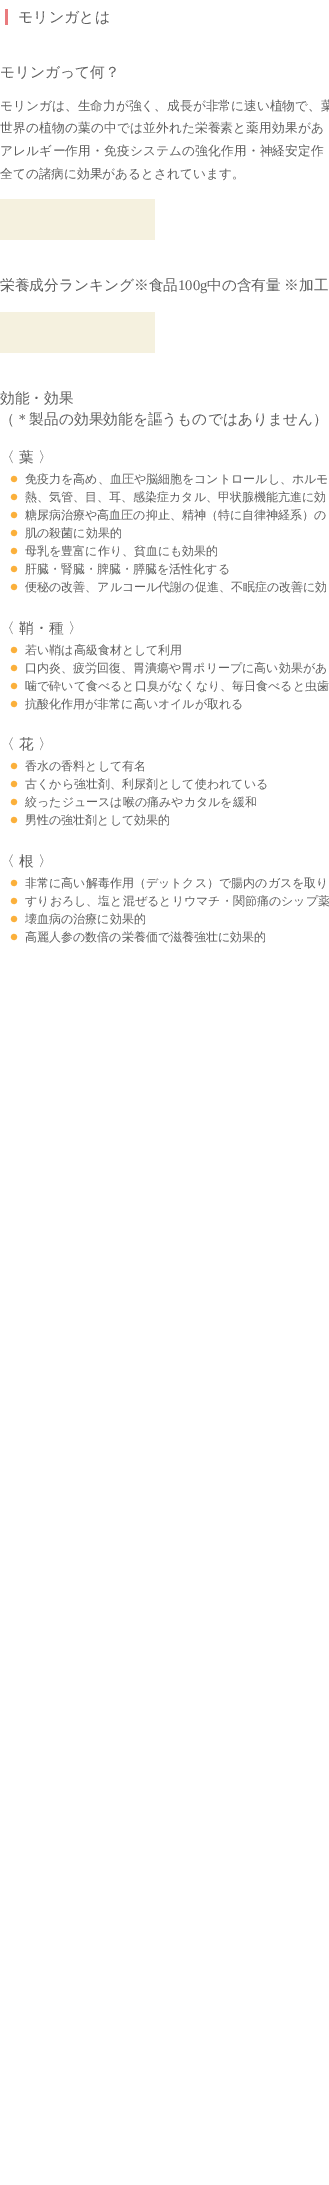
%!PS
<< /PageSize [329 2185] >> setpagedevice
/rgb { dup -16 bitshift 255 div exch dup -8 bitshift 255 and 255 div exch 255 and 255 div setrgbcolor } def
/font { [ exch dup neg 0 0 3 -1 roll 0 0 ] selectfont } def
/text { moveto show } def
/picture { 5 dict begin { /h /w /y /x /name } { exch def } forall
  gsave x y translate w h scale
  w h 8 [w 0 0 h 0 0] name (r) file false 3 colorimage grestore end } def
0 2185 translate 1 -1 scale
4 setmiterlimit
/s1 { /WenQuanYiZenHei-Medium 15 font 16#5F5F5F rgb } def
/s2 { /WenQuanYiZenHei-Medium 14.7 font 16#5F5F5F rgb } def
/s3 { /WenQuanYiZenHei-Medium 12.7 font 16#5F5F5F rgb } def
/s4 { /LiberationSerif-Regular 14.7 font 16#5F5F5F rgb } def
/s5 { /WenQuanYiZenHei-Medium 12 font 16#5F5F5F rgb } def
16#FFFFFF rgb
0 0 329 2185 rectfill
s1
(モリンガとは) 18 22 text
16#E97B7E rgb
5 9 3 16 rectfill
s2
(モリンガって何？) 0 77 text
s3
(モリンガは、生命力が強く、成長が非常に速い植物で、葉) 0 110 text
0 132 moveto 0.15 0 (世界の植物の葉の中では並外れた栄養素と薬用効果があ) ashow
0 155 moveto 0.15 0 (アレルギー作用・免疫システムの強化作用・神経安定作) ashow
(全ての諸病に効果があるとされています。) 0 178 text
16#F5F1DF rgb
0 199 155 41 rectfill
s2
(栄養成分ランキング※食品) 0 290 text
s4
(100g) 178 290 text
/WenQuanYiZenHei-Medium 14.7 font
207 290 moveto -1 0 32 (中の含有量 ※加工) widthshow
16#F5F1DF rgb
0 312 155 41 rectfill
s2
(効能・効果) 0 403 text
(（＊製品の効果効能を謳うものではありません）) 0 424 text
(〈 葉 〉) 0 462 text
(pic1.raw) 10 475 8 8 picture
s5
(免疫力を高め、血圧や脳細胞をコントロールし、ホルモ) 25 483 text
(pic1.raw) 10 493 8 8 picture
(熱、気管、目、耳、感染症カタル、甲状腺機能亢進に効) 25 501 text
(pic1.raw) 10 511 8 8 picture
(糖尿病治療や高血圧の抑止、精神（特に自律神経系）の) 25 519 text
(pic1.raw) 10 529 8 8 picture
(肌の殺菌に効果的) 25 537 text
(pic1.raw) 10 547 8 8 picture
(母乳を豊富に作り、貧血にも効果的) 25 555 text
(pic1.raw) 10 565 8 8 picture
(肝臓・腎臓・脾臓・膵臓を活性化する) 25 573 text
(pic1.raw) 10 583 8 8 picture
(便秘の改善、アルコール代謝の促進、不眠症の改善に効) 25 591 text
s2
(〈 鞘・種 〉) 0 633 text
(pic1.raw) 10 646 8 8 picture
s5
(若い鞘は高級食材として利用) 25 654 text
(pic1.raw) 10 664 8 8 picture
(口内炎、疲労回復、胃潰瘍や胃ポリープに高い効果があ) 25 672 text
(pic1.raw) 10 682 8 8 picture
(噛で砕いて食べると口臭がなくなり、毎日食べると虫歯) 25 690 text
(pic1.raw) 10 700 8 8 picture
(抗酸化作用が非常に高いオイルが取れる) 25 708 text
s2
(〈 花 〉) 0 749 text
(pic1.raw) 10 762 8 8 picture
s5
(香水の香料として有名) 25 770 text
(pic1.raw) 10 780 8 8 picture
(古くから強壮剤、利尿剤として使われている) 25 788 text
(pic1.raw) 10 798 8 8 picture
(絞ったジュースは喉の痛みやカタルを緩和) 25 806 text
(pic1.raw) 10 816 8 8 picture
(男性の強壮剤として効果的) 25 824 text
s2
(〈 根 〉) 0 866 text
(pic1.raw) 10 879 8 8 picture
s5
(非常に高い解毒作用（デットクス）で腸内のガスを取り) 25 887 text
(pic1.raw) 10 897 8 8 picture
(すりおろし、塩と混ぜるとリウマチ・関節痛のシップ薬) 25 905 text
(pic1.raw) 10 915 8 8 picture
(壊血病の治療に効果的) 25 923 text
(pic1.raw) 10 933 8 8 picture
(高麗人参の数倍の栄養価で滋養強壮に効果的) 25 941 text
showpage
